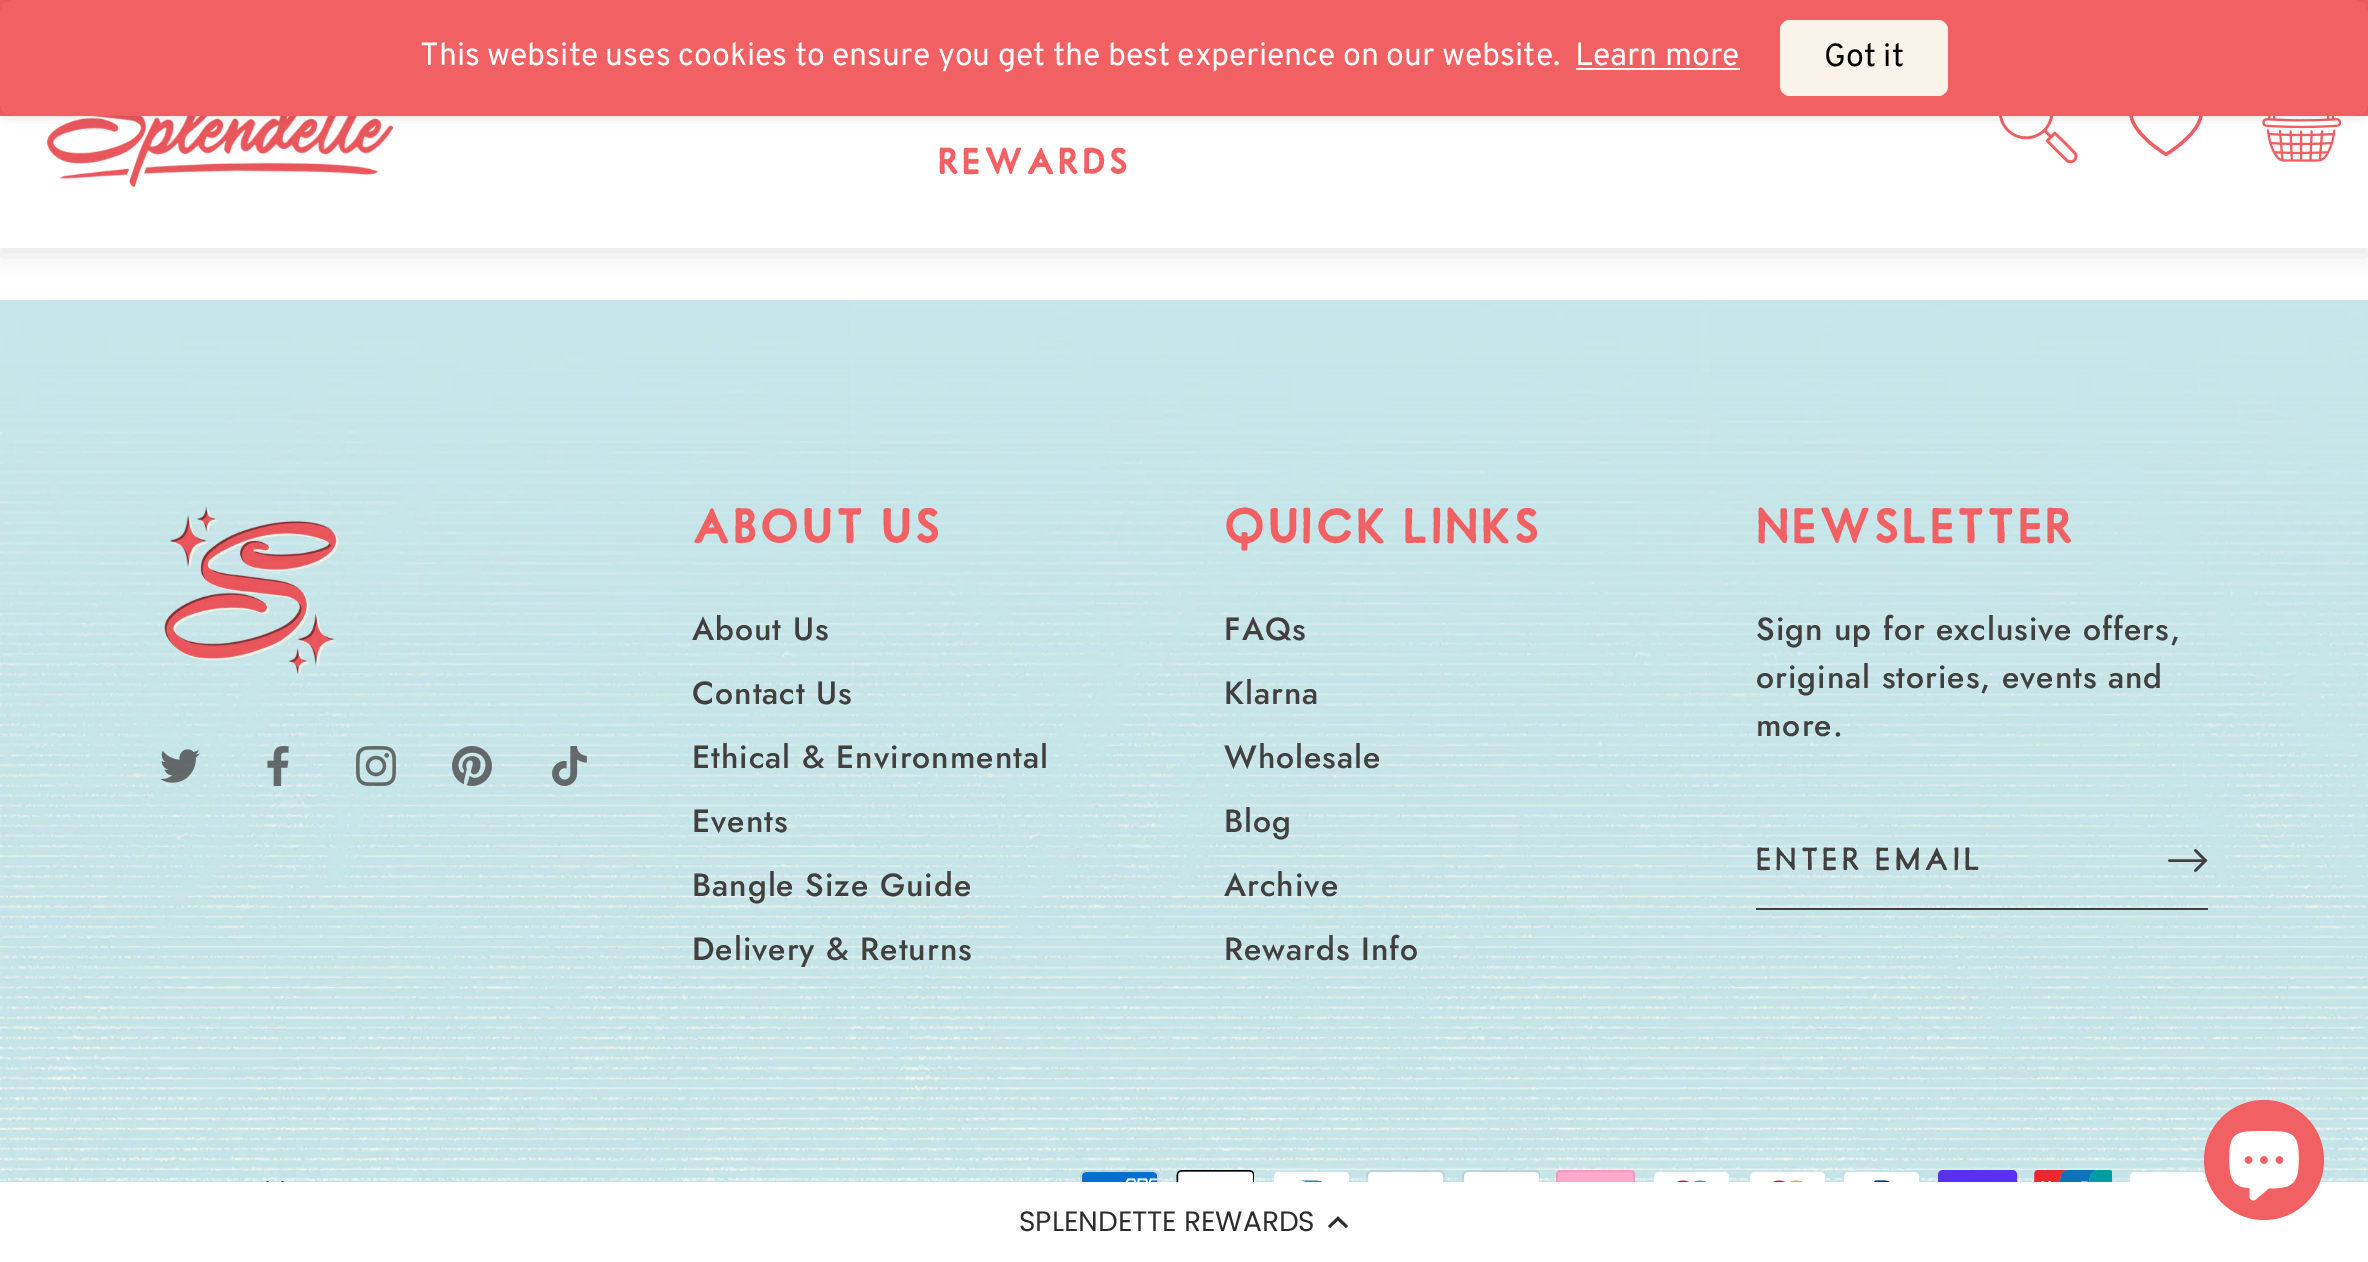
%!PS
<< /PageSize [2368 1262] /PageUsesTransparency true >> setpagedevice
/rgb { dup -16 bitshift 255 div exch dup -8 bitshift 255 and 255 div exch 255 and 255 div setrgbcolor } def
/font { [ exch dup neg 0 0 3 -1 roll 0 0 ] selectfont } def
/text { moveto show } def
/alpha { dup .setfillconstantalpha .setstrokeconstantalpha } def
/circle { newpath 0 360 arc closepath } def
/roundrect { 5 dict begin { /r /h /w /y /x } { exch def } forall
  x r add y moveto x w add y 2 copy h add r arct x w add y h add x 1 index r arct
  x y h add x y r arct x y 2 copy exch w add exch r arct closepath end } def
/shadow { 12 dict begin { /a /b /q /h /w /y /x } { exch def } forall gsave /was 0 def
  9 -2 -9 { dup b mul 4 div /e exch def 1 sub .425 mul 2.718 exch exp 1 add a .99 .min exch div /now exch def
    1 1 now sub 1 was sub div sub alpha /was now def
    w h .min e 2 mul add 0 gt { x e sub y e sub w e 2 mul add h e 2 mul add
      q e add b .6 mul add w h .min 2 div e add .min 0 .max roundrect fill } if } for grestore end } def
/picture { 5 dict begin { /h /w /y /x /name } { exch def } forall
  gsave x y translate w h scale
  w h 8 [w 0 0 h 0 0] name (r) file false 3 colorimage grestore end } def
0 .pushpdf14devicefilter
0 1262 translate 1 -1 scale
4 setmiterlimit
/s1 { /Overpass-Regular 32 font 16#FFFFFF rgb } def
/s2 { /Overpass-Regular 32 font 16#000000 rgb } def
/s3 { /Poppins-Regular 28 font 16#2C2C2C rgb } def
16#FFFFFF rgb
0 0 2368 1262 rectfill
16#000000 rgb
0 8 2368 248 0 11 0.09 shadow
16#F16062 rgb
0 0 2368 116 rectfill
16#FFFFFF rgb
0 116 2368 132 rectfill
(pic1.raw) 46 116 348 71 picture
(pic2.raw) 1998 116 80 48 picture
(pic3.raw) 2128 116 76 41 picture
(pic4.raw) 2262 116 80 46 picture
gsave
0 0 moveto 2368 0 lineto 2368 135 lineto 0 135 lineto closepath 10 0 moveto 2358 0 lineto 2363.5 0 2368 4.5 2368 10 curveto 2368 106 lineto 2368 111.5 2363.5 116 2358 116 curveto 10 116 lineto 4.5 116 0 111.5 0 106 curveto 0 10 lineto 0 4.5 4.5 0 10 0 curveto closepath eoclip newpath
16#000000 rgb
0 0 2368 116 10 6 0.12 shadow
grestore
s1
(This website uses cookies to ensure you get the best experience on our website.) 420 65 text
(Learn more) 1575 65 text
1576 68 164 2 rectfill
16#F9F3E9 rgb
1780 20 168 76 10 roundrect fill
s2
(Got it) 1824 66 text
/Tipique-Bold 36 font
16#F16062 rgb
938 174 moveto 4 0 (REWARDS) ashow
(pic5.raw) 0 300 2368 882 picture
(pic6.raw) 164 506 175 169 picture
(pic7.raw) 160 749 40 34 picture
(pic8.raw) 267 746 22 40 picture
(pic9.raw) 356 746 40 40 picture
(pic10.raw) 452 746 40 40 picture
(pic11.raw) 552 746 35 40 picture
/Tipique-Bold 48 font
692 543 moveto 4 0 (ABOUT US) ashow
/Jost-Medium 32 font
16#423F3F rgb
692 640 moveto 1 0 (About Us) ashow
692 704 moveto 1 0 (Contact Us) ashow
692 768 moveto 1 0 (Ethical & Environmental) ashow
692 832 moveto 1 0 (Events) ashow
692 896 moveto 1 0 (Bangle Size Guide) ashow
692 960 moveto 1 0 (Delivery & Returns) ashow
/Tipique-Bold 48 font
16#F16062 rgb
1224 543 moveto 4 0 (QUICK LINKS) ashow
/Jost-Medium 32 font
16#423F3F rgb
1224 640 moveto 1 0 (FAQs) ashow
1224 704 moveto 1 0 (Klarna) ashow
1224 768 moveto 1 0 (Wholesale) ashow
1224 832 moveto 1 0 (Blog) ashow
1224 896 moveto 1 0 (Archive) ashow
1224 960 moveto 1 0 (Rewards Info) ashow
/Tipique-Bold 48 font
16#F16062 rgb
1756 543 moveto 4 0 (NEWSLETTER) ashow
/Jost-Medium 32 font
16#423F3F rgb
1756 640 moveto 1 0 (Sign up for exclusive offers,) ashow
1756 688 moveto 1 0 (original stories, events and) ashow
1756 736 moveto 1 0 (more.) ashow
1756 908 452 2 rectfill
/Tipique-Regular 32 font
1756 870 moveto 4 0 (ENTER EMAIL) ashow
2.6 setlinewidth
1 setlinecap
2195.5 870.5 moveto 2205.5 860.5 lineto 2195.5 850.5 lineto stroke
1 setlinejoin
2204.5 860.5 moveto 2169.5 860.5 lineto stroke
(pic12.raw) 1080 1170 79 12 picture
(pic13.raw) 1176 1170 78 12 picture
(pic14.raw) 1274 1172 76 10 picture
(pic15.raw) 1366 1170 79 12 picture
(pic16.raw) 1462 1170 78 12 picture
(pic17.raw) 1556 1170 79 12 picture
(pic18.raw) 1654 1172 76 10 picture
(pic19.raw) 1750 1172 76 10 picture
(pic20.raw) 1844 1172 76 10 picture
(pic21.raw) 1938 1170 80 12 picture
(pic22.raw) 2034 1170 78 12 picture
(pic23.raw) 2130 1172 76 10 picture
2.8 setlinewidth
0 setlinejoin
267.5 1182.5 moveto 275 1190 lineto 282.5 1182.5 lineto stroke
16#FFFFFF rgb
266 1182 18 10 rectfill
s3
(SPLENDETTE REWARDS) 1019 1231 text
1338 1220.5 moveto 1330 1228 lineto 1328 1226 lineto 1338 1216.5 lineto 1348 1226 lineto 1346 1228 lineto closepath fill
16#F16062 rgb
2264 1160 60 circle fill
(pic24.raw) 2229 1131 70 70 picture
.poppdf14devicefilter showpage
